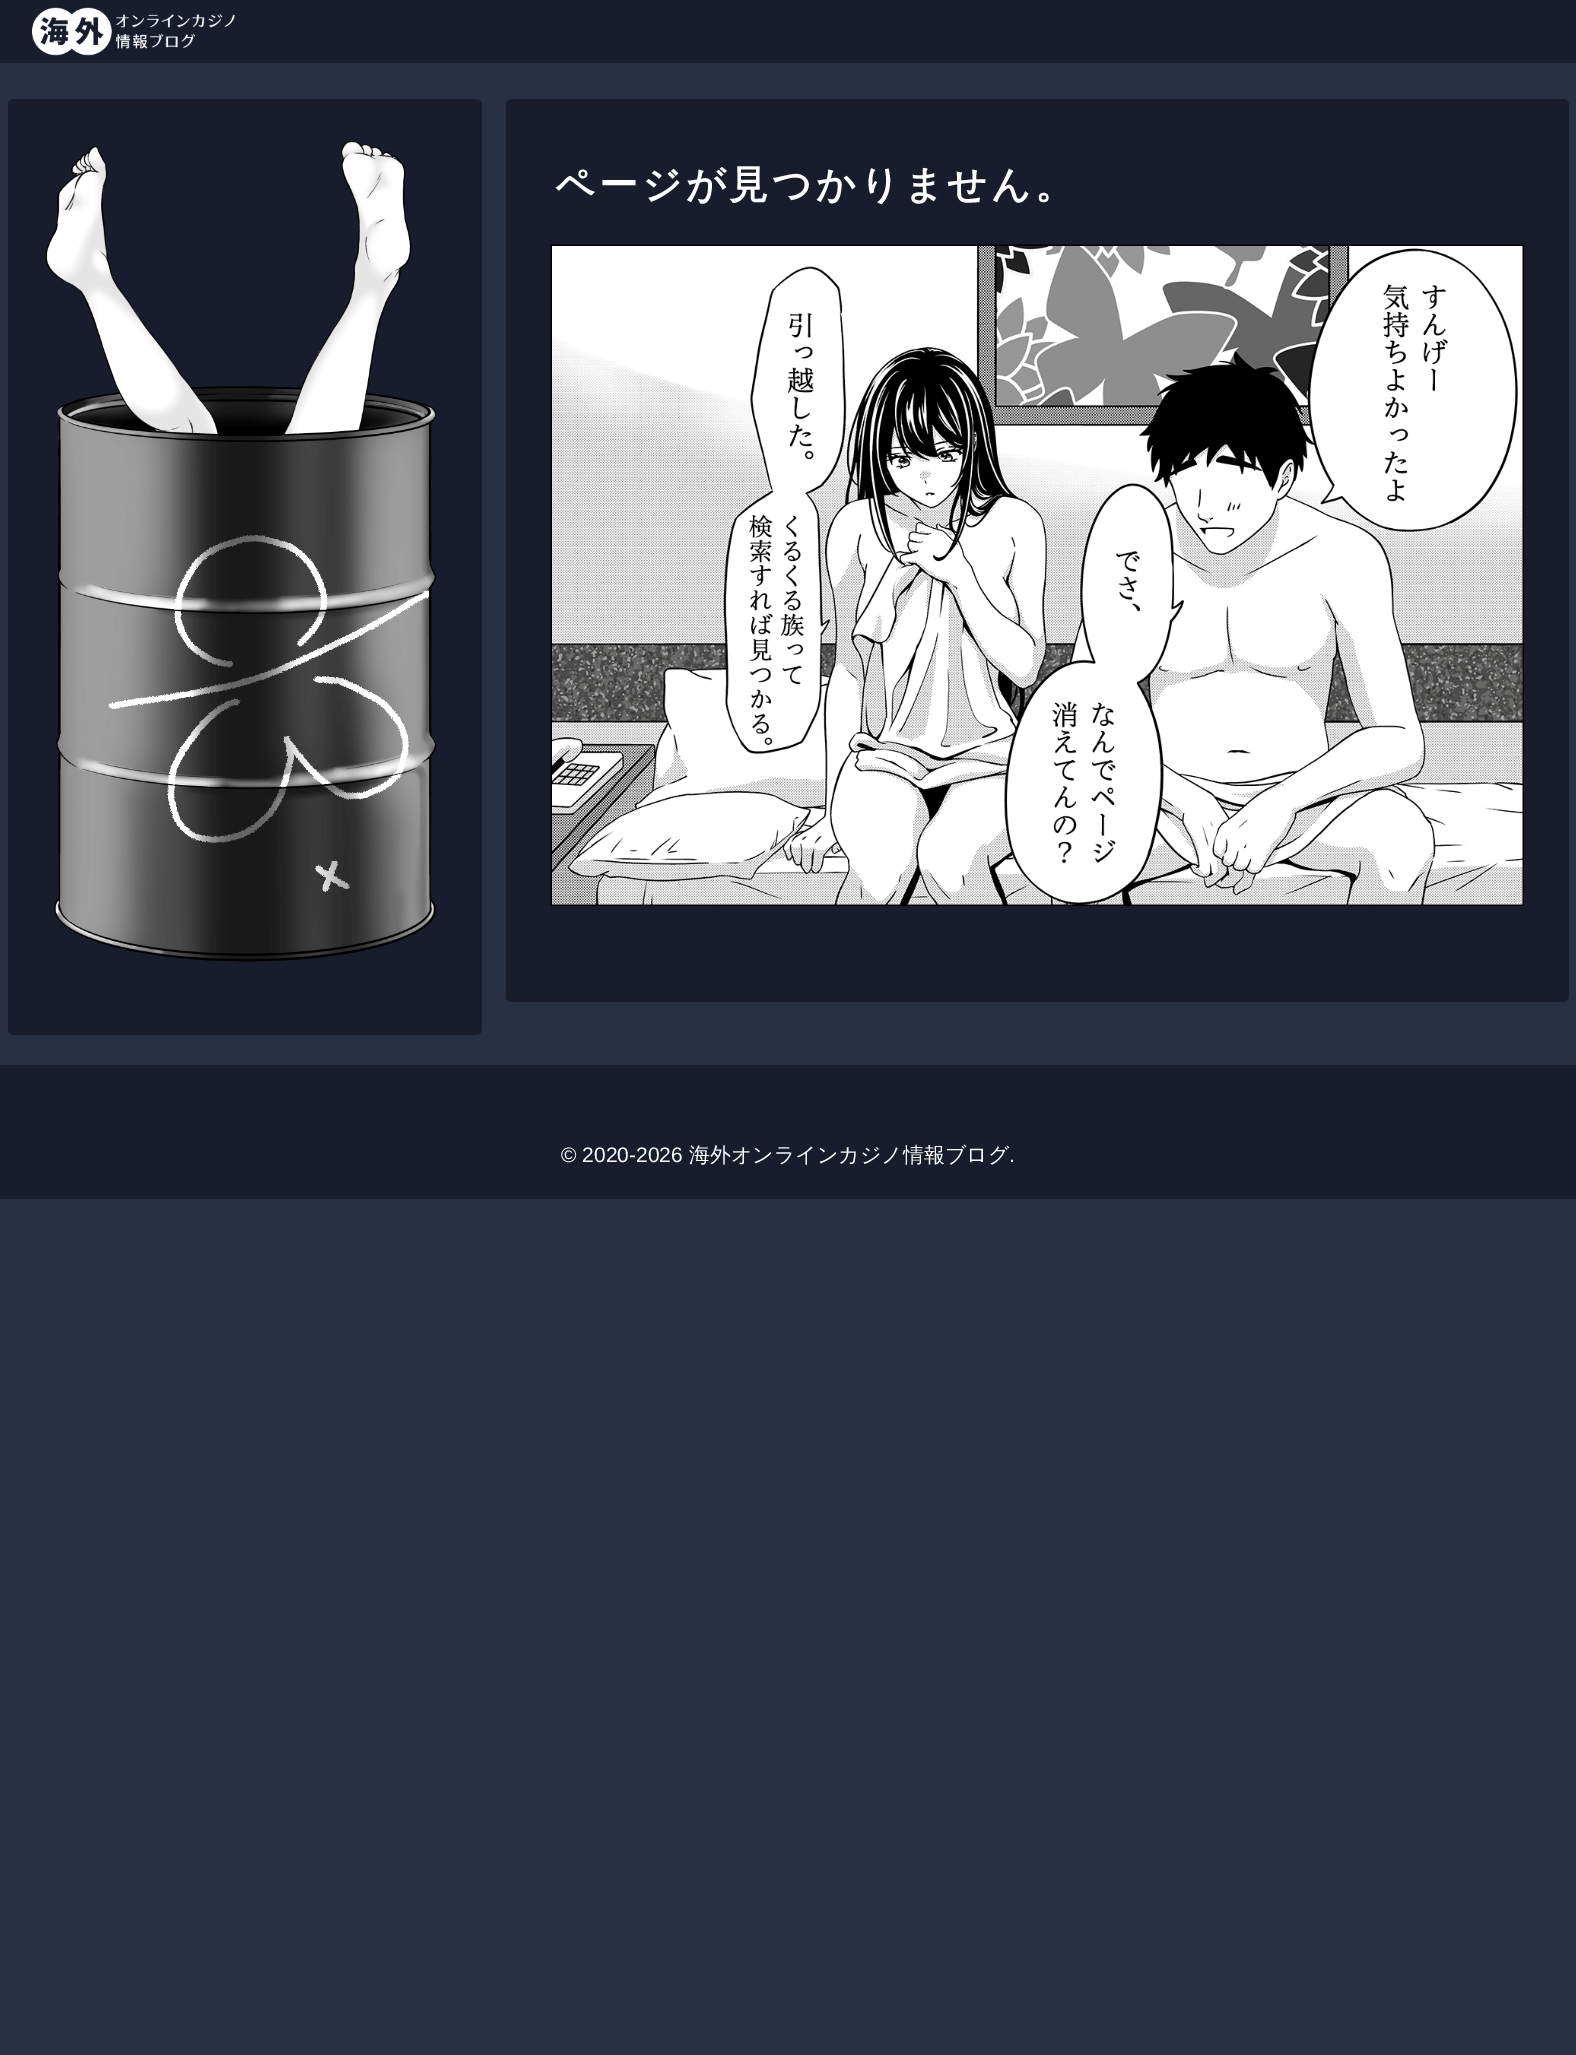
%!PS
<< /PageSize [1576 2055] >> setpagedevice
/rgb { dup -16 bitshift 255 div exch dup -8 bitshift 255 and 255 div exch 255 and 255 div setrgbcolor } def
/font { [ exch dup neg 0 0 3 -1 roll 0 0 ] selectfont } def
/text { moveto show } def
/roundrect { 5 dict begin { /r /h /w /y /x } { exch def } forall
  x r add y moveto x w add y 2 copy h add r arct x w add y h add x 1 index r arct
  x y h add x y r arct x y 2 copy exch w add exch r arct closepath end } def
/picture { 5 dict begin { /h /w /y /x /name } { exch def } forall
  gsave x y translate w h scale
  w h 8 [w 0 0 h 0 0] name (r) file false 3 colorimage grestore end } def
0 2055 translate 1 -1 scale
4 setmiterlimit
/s1 { /LiberationSans-Regular 21 font 16#FEFFFE rgb } def
/s2 { /WenQuanYiZenHei-Medium 21 font 16#FEFFFE rgb } def
16#283043 rgb
0 0 1576 2055 rectfill
16#171D2D rgb
0 0 1576 63 rectfill
(pic1.raw) 32 7 203 49 picture
8 99 474 936 6 roundrect fill
(pic2.raw) 45 140 392 822 picture
506 99 1063 903 6 roundrect fill
/WenQuanYiZenHei-Bold 39 font
16#FEFFFE rgb
555 198 moveto 3.9 0 (ページが見つかりません。) ashow
(pic3.raw) 550 244 974 662 picture
16#171D2D rgb
0 1065 1576 134 rectfill
s1
(© 2020-2026) 561 1162 text
s2
(海外オンラインカジノ情報ブログ) 689 1162 text
s1
(.) 1009 1162 text
showpage
